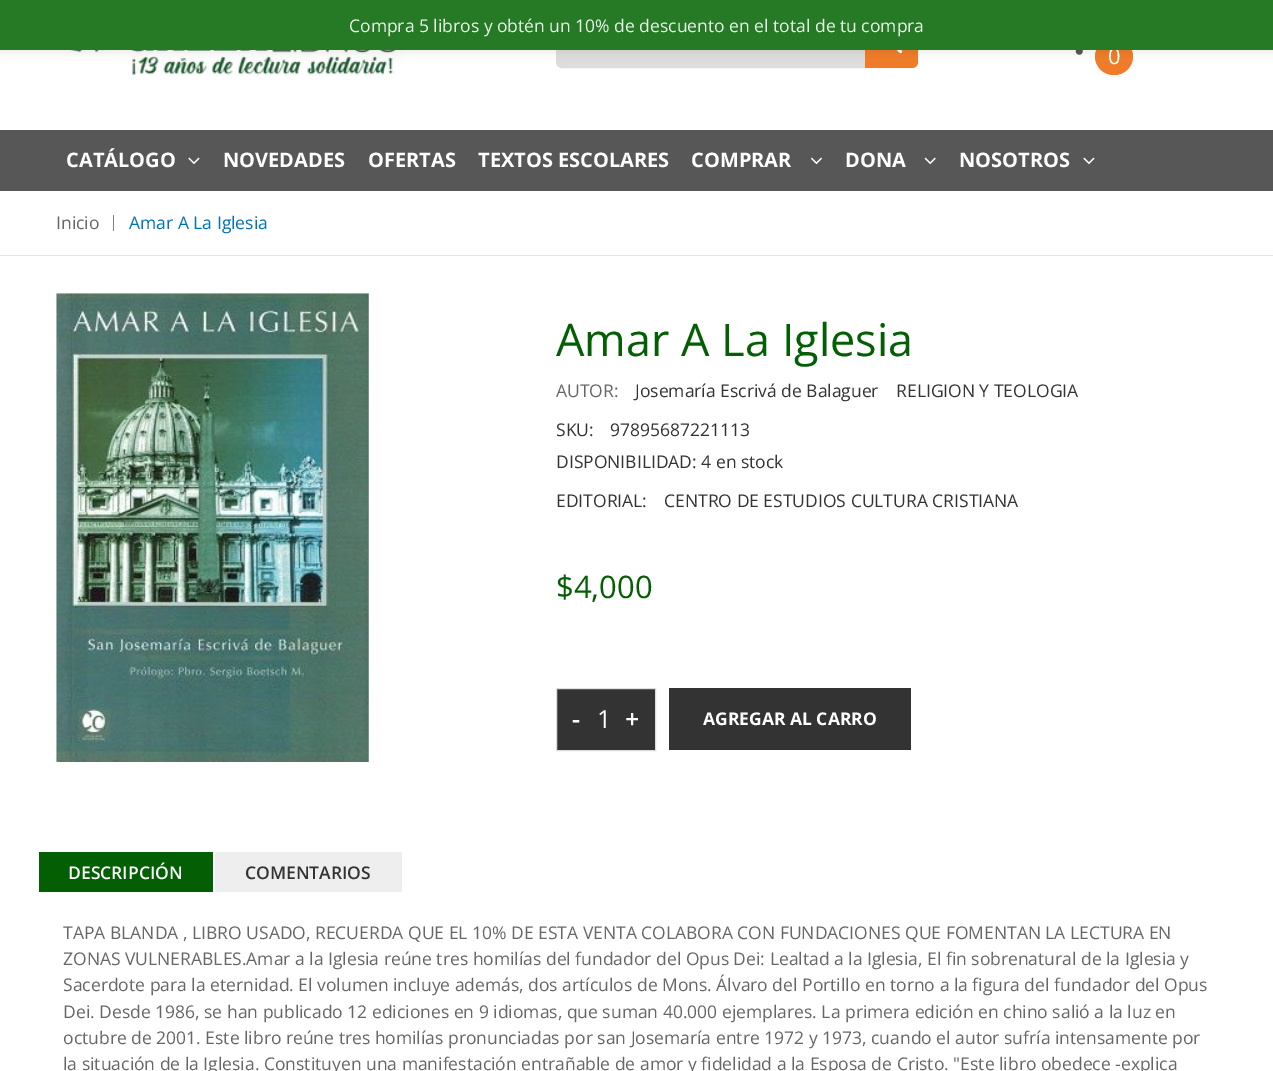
%!PS
<< /PageSize [1273 1071] /PageUsesTransparency true >> setpagedevice
/rgb { dup -16 bitshift 255 div exch dup -8 bitshift 255 and 255 div exch 255 and 255 div setrgbcolor } def
/font { [ exch dup neg 0 0 3 -1 roll 0 0 ] selectfont } def
/text { moveto show } def
/alpha { dup .setfillconstantalpha .setstrokeconstantalpha } def
/roundrect { 5 dict begin { /r /h /w /y /x } { exch def } forall
  x r add y moveto x w add y 2 copy h add r arct x w add y h add x 1 index r arct
  x y h add x y r arct x y 2 copy exch w add exch r arct closepath end } def
/shadow { 12 dict begin { /a /b /q /h /w /y /x } { exch def } forall gsave /was 0 def
  9 -2 -9 { dup b mul 4 div /e exch def 1 sub .425 mul 2.718 exch exp 1 add a .99 .min exch div /now exch def
    1 1 now sub 1 was sub div sub alpha /was now def
    w h .min e 2 mul add 0 gt { x e sub y e sub w e 2 mul add h e 2 mul add
      q e add b .6 mul add w h .min 2 div e add .min 0 .max roundrect fill } if } for grestore end } def
/picture { 5 dict begin { /h /w /y /x /name } { exch def } forall
  gsave x y translate w h scale
  w h 8 [w 0 0 h 0 0] name (r) file false 3 colorimage grestore end } def
0 .pushpdf14devicefilter
0 1071 translate 1 -1 scale
4 setmiterlimit
/s1 { /OpenSans-Regular 22 font 16#FFFFFF rgb } def
/s2 { /OpenSans-Regular 17.5 font 16#EAF3EA rgb } def
/s3 { /OpenSans-Bold 20 font 16#FFFFFF rgb } def
/s4 { /OpenSans-Regular 17.5 font 16#666666 rgb } def
/s5 { /OpenSans-Regular 17.5 font 16#0072B0 rgb } def
/s6 { /OpenSans-Regular 45 font 16#045E04 rgb } def
/s7 { /OpenSans-Regular 17.5 font 16#333333 rgb } def
/s8 { /OpenSans-Regular 31 font 16#045E04 rgb } def
/s9 { /OpenSans-SemiBold 25 font 16#FFFFFF rgb } def
/s10 { /OpenSans-Regular 25 font 16#FFFFFF rgb } def
/s11 { /OpenSans-Bold 17.5 font 16#FFFFFF rgb } def
/s12 { /OpenSans-SemiBold 17.5 font 16#FFFFFF rgb } def
/s13 { /OpenSans-SemiBold 17.5 font 16#333333 rgb } def
16#FFFFFF rgb
0 0 1273 1071 rectfill
(pic1.raw) 65 50 339 26 picture
16#DDDDDD rgb
556.5 15.5 361 52 5.5 roundrect gsave fill grestore
stroke
16#F07C29 rgb
865 15 moveto 912 15 lineto 915.5 15 918 17.5 918 21 curveto 918 62 lineto 918 65.5 915.5 68 912 68 curveto 865 68 lineto closepath fill
(pic2.raw) 896 50 7 4 picture
(pic3.raw) 1075 50 8 5 picture
1095 38 38 37 18.5 roundrect fill
16#000000 rgb
-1 -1 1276 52 0 5.5 0.11 shadow
s1
(0) 1108 64 text
16#267A25 rgb
0 0 1273 50 rectfill
s2
(Compra 5 libros y obtén un 10% de descuento en el total de tu compra) 349 32 text
16#585757 rgb
0 130 1273 61 rectfill
s3
(CATÁLOGO) 66 167 text
(pic4.raw) 188 157 12 8 picture
(NOVEDADES) 223 167 text
(OFERTAS) 368 167 text
(TEXTOS ESCOLARES) 478 167 text
(COMPRAR) 691 167 text
(pic5.raw) 810 157 12 8 picture
(DONA) 845 167 text
(pic6.raw) 924 157 12 8 picture
(NOSOTROS) 959 167 text
(pic4.raw) 1083 157 12 8 picture
16#E5E5E5 rgb
0 255 1273 1 rectfill
s4
(Inicio) 56 229 text
16#818181 rgb
113 215 1 16 rectfill
s5
(Amar A La Iglesia) 129 229 text
(pic7.raw) 56 293 313 469 picture
s6
(Amar A La Iglesia) 556 356 text
s4
(AUTOR:) 556 397 text
s7
(Josemaría Escrivá de Balaguer) 635 397 text
(RELIGION Y TEOLOGIA) 896 397 text
(SKU:) 556 436 text
(97895687221113) 610 436 text
(DISPONIBILIDAD: 4 en stock) 556 468 text
(EDITORIAL:) 556 507 text
(CENTRO DE ESTUDIOS CULTURA CRISTIANA) 664 507 text
s8
($4,000) 556 598 text
16#333333 rgb
556.5 688.5 moveto 655.5 688.5 lineto 655.5 750.5 lineto 556.5 750.5 lineto closepath gsave fill grestore
16#DDDDDD rgb
stroke
s9
(-) 572 728 text
s10
(1) 597 728 text
s9
(+) 625 728 text
16#333333 rgb
669 688 242 62 rectfill
s11
(AGREGAR AL CARRO) 703 725 text
16#045E04 rgb
39 852 174 40 rectfill
s12
(DESCRIPCIÓN) 68 879 text
16#EEEEEE rgb
215 852 187 40 rectfill
s13
(COMENTARIOS) 245 879 text
s4
(TAPA BLANDA , LIBRO USADO, RECUERDA QUE EL 10% DE ESTA VENTA COLABORA CON FUNDACIONES QUE FOMENTAN LA LECTURA EN) 63 939 text
(ZONAS VULNERABLES.Amar a la Iglesia reúne tres homilías del fundador del Opus Dei: Lealtad a la Iglesia, El fin sobrenatural de la Iglesia y) 63 965 text
(Sacerdote para la eternidad. El volumen incluye además, dos artículos de Mons. Álvaro del Portillo en torno a la figura del fundador del Opus) 63 991 text
(Dei. Desde 1986, se han publicado 12 ediciones en 9 idiomas, que suman 40.000 ejemplares. La primera edición en chino salió a la luz en) 63 1018 text
(octubre de 2001. Este libro reúne tres homilías pronunciadas por san Josemaría entre 1972 y 1973, cuando el autor sufría intensamente por) 63 1044 text
(la situación de la Iglesia. Constituyen una manifestación entrañable de amor y fidelidad a la Esposa de Cristo. "Este libro obedece -explica) 63 1070 text
.poppdf14devicefilter showpage
